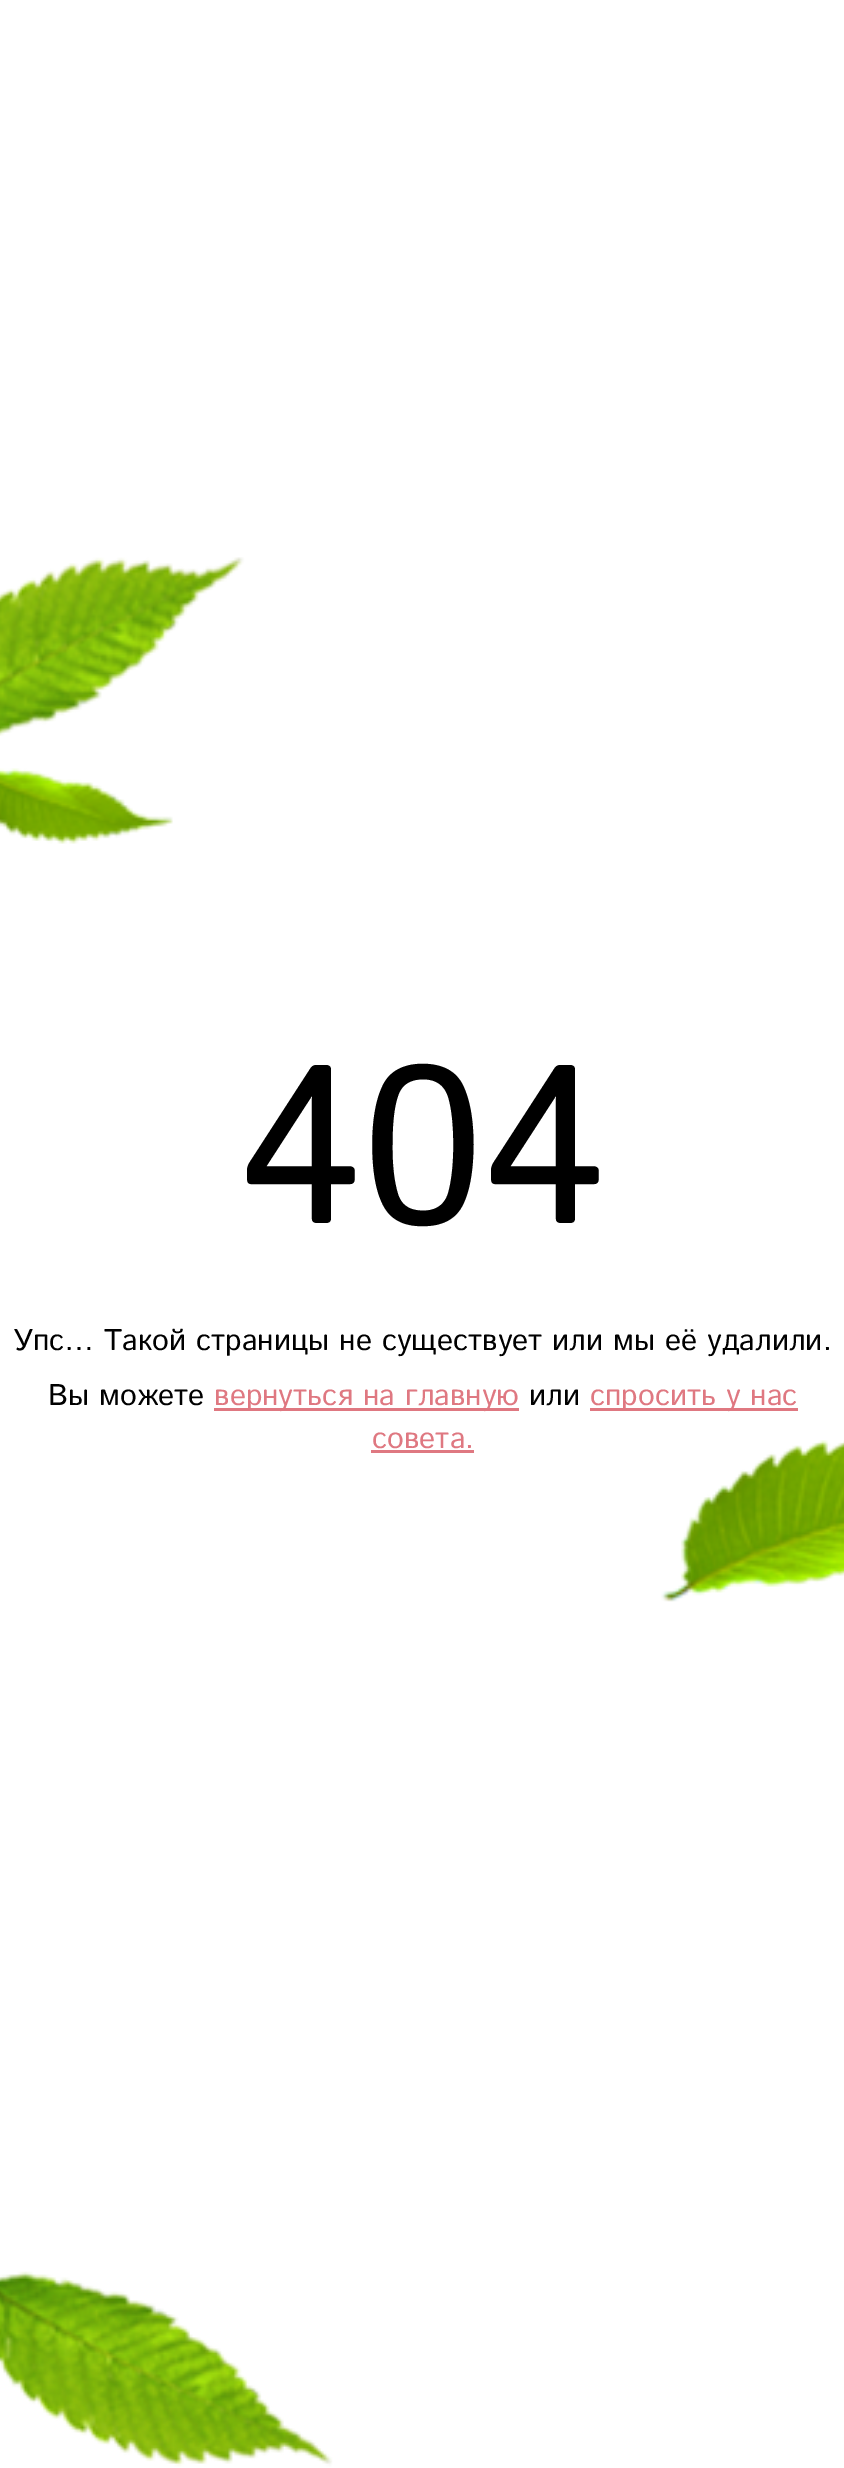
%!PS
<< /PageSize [844 2468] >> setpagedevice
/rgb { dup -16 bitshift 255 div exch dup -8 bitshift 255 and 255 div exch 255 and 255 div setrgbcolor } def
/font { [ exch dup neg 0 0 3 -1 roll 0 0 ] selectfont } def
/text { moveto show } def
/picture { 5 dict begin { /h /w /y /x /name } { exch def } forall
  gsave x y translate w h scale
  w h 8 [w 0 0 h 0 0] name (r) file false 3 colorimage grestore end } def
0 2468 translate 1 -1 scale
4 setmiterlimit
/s1 { /IstokWeb-Regular 225 font 16#000000 rgb } def
/s2 { /IstokWeb-Regular 30 font 16#000000 rgb } def
/s3 { /IstokWeb-Regular 30 font 16#DF7881 rgb } def
16#FFFFFF rgb
0 0 844 2468 rectfill
(pic1.raw) 0 557 844 1910 picture
s1
(404) 240 1223 text
s2
(Упс… Такой страницы не существует или мы её удалили.) 13 1350 text
(Вы можете) 48 1405 text
16#DF7881 rgb
214 1408 305 3 rectfill
(вернуться на главную) 214 1405 text
s2
(или) 529 1405 text
16#DF7881 rgb
590 1408 208 3 rectfill
(спросить у нас) 590 1405 text
(совета.) 372 1448 text
371 1450 103 3 rectfill
showpage
